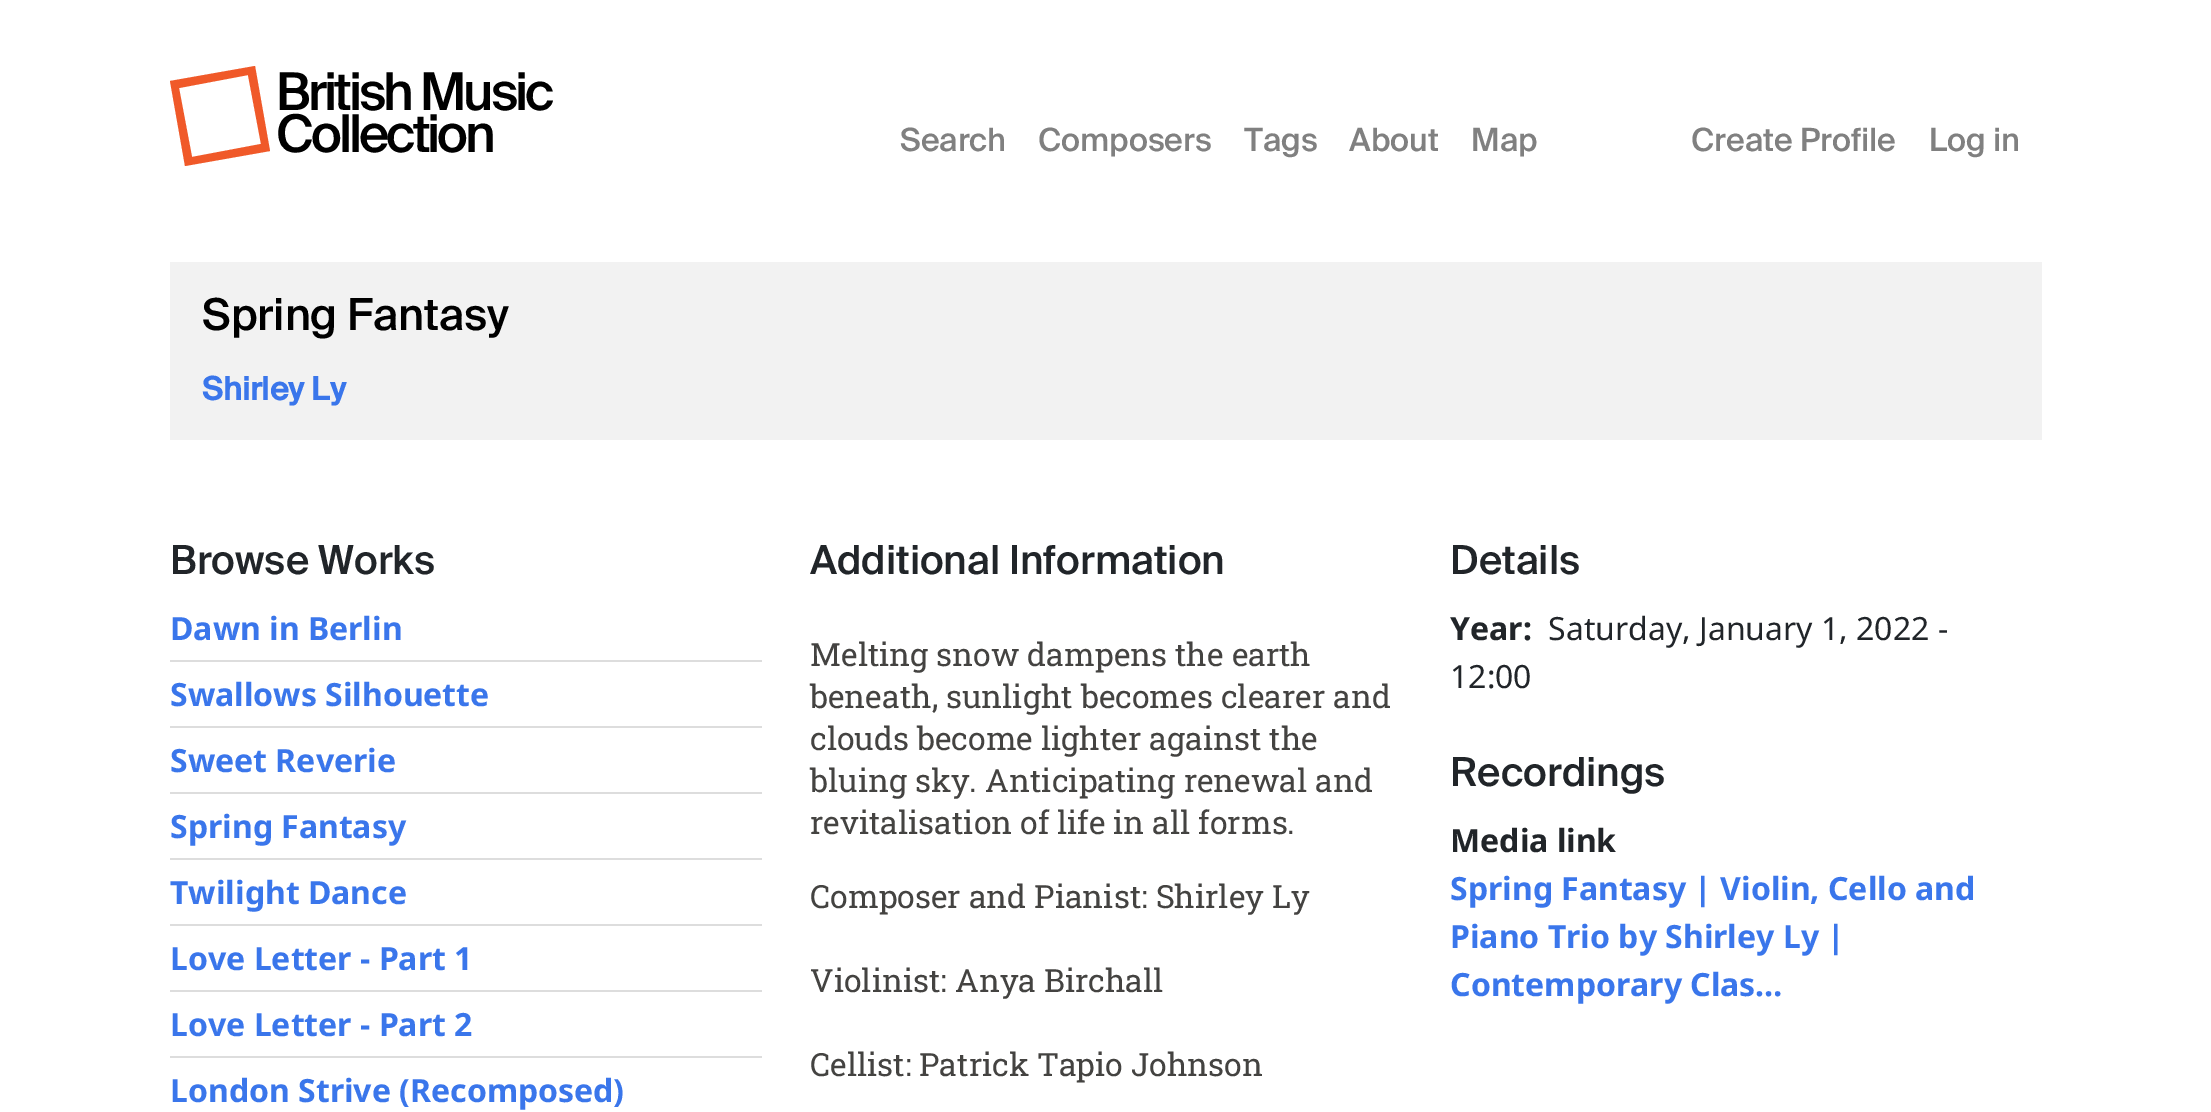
%!PS
<< /PageSize [2211 1112] >> setpagedevice
/rgb { dup -16 bitshift 255 div exch dup -8 bitshift 255 and 255 div exch 255 and 255 div setrgbcolor } def
/font { [ exch dup neg 0 0 3 -1 roll 0 0 ] selectfont } def
/text { moveto show } def
0 1112 translate 1 -1 scale
4 setmiterlimit
/s1 { /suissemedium-Medium 32 font 16#808080 rgb } def
/s2 { /suissemedium-Medium 44 font 16#000000 rgb } def
/s3 { /suissemedium-Bold 32 font 16#3A76EB rgb } def
/s4 { /suissemedium-Medium 40 font 16#212529 rgb } def
/s5 { /NotoSans-Bold 32 font 16#3A76EB rgb } def
/s6 { /RobotoSlab-Regular 32 font 16#444341 rgb } def
/s7 { /NotoSans-Regular 32 font 16#212529 rgb } def
/s8 { /NotoSans-Bold 32 font 16#212529 rgb } def
16#FFFFFF rgb
0 0 2211 1112 rectfill
16#F05929 rgb
255 66 moveto 170 81 lineto 185 166 lineto 270 151 lineto closepath 248 75 moveto 261 144 lineto 192 157 lineto 179 88 lineto closepath fill
/suissemedium-Medium 52 font
16#000000 rgb
276 110 moveto -3 0 (British Music) ashow
276 152 moveto -3 0 (Collection) ashow
s1
(Search) 900 151 text
(Composers) 1038 151 text
(Tags) 1244 151 text
(About) 1349 151 text
(Map) 1471 151 text
(Create Profile) 1691 151 text
(Log in) 1929 151 text
16#F2F2F2 rgb
170 262 1872 178 rectfill
s2
(Spring Fantasy) 202 330 text
s3
(Shirley Ly) 202 400 text
s4
(Browse Works) 170 574 text
16#DDDDDD rgb
170 660 592 2 rectfill
s5
(Dawn in Berlin) 170 640 text
16#DDDDDD rgb
170 726 592 2 rectfill
s5
(Swallows Silhouette) 170 706 text
16#DDDDDD rgb
170 792 592 2 rectfill
s5
(Sweet Reverie) 170 772 text
16#DDDDDD rgb
170 858 592 2 rectfill
s5
(Spring Fantasy) 170 838 text
16#DDDDDD rgb
170 924 592 2 rectfill
s5
(Twilight Dance) 170 904 text
16#DDDDDD rgb
170 990 592 2 rectfill
s5
(Love Letter - Part 1) 170 970 text
16#DDDDDD rgb
170 1056 592 2 rectfill
s5
(Love Letter - Part 2) 170 1036 text
(London Strive \(Recomposed\)) 170 1102 text
s4
(Additional Information) 810 574 text
s6
(Melting snow dampens the earth) 810 666 text
(beneath, sunlight becomes clearer and) 810 708 text
(clouds become lighter against the) 810 750 text
(bluing sky. Anticipating renewal and) 810 792 text
(revitalisation of life in all forms.) 810 834 text
(Composer and Pianist: Shirley Ly) 810 908 text
(Violinist: Anya Birchall) 810 992 text
(Cellist: Patrick Tapio Johnson) 810 1076 text
s4
(Details) 1450 574 text
s7
(Saturday, January 1, 2022 -) 1548 640 text
(12:00) 1450 688 text
s8
(Year:) 1450 640 text
s4
(Recordings) 1450 786 text
s8
(Media link) 1450 852 text
s5
(Spring Fantasy | Violin, Cello and) 1450 900 text
(Piano Trio by Shirley Ly |) 1450 948 text
(Contemporary Clas…) 1450 996 text
showpage
